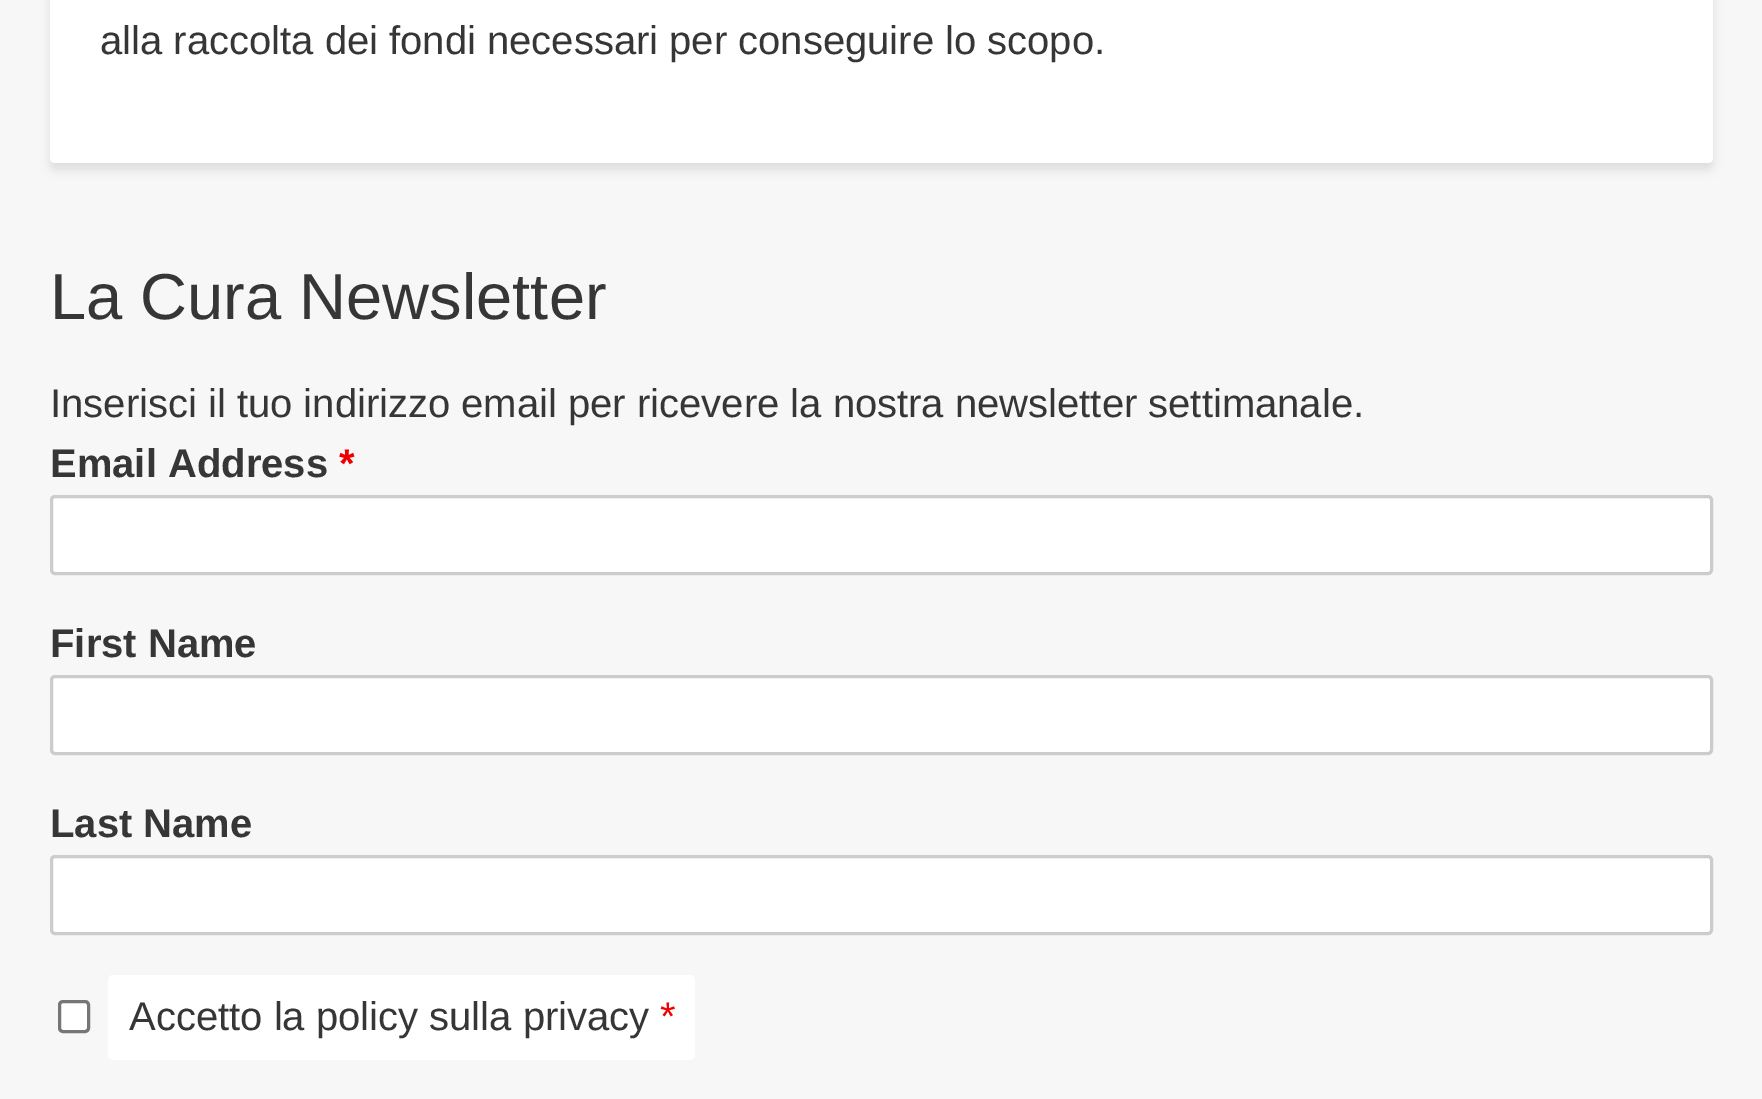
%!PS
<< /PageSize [1762 1099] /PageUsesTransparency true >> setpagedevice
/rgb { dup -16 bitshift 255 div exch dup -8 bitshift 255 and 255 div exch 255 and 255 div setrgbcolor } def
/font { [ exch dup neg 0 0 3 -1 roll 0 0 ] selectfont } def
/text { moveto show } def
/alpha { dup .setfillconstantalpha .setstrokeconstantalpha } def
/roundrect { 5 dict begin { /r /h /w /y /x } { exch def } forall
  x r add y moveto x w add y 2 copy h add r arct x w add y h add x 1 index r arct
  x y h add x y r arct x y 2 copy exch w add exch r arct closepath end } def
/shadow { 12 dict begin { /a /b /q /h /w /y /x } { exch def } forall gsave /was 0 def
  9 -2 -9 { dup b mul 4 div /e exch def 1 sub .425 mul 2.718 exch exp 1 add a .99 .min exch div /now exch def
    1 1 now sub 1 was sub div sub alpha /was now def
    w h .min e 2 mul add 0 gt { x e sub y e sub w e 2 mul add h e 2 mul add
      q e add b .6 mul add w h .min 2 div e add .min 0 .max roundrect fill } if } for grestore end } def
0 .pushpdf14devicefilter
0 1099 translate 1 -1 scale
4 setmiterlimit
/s1 { /LiberationSans-Regular 40 font 16#363636 rgb } def
/s2 { /LiberationSans-Regular 65 font 16#363636 rgb } def
/s3 { /LiberationSans-Bold 40 font 16#363636 rgb } def
/s4 { /LiberationSans-Bold 40 font 16#EE0000 rgb } def
/s5 { /LiberationSans-Regular 40 font 16#EE0000 rgb } def
16#F7F7F7 rgb
0 0 1762 1099 rectfill
16#000000 rgb
50 -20 1663 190 5 5 0.1 shadow
16#FFFFFF rgb
50 -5 1663 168 5 roundrect fill
s1
(alla raccolta dei fondi necessari per conseguire lo scopo.) 100 54 text
s2
(La Cura Newsletter) 50 319 text
s1
(Inserisci il tuo indirizzo email per ricevere la nostra newsletter settimanale.) 50 417 text
s3
(Email Address) 50 477 text
s4
(*) 339 477 text
16#FFFFFF rgb
51.5 496.5 1660 77 3.5 roundrect gsave fill grestore
16#CCCCCC rgb
3 setlinewidth
stroke
s3
(First Name) 50 657 text
16#FFFFFF rgb
51.5 676.5 1660 77 3.5 roundrect gsave fill grestore
16#CCCCCC rgb
stroke
s3
(Last Name) 50 837 text
16#FFFFFF rgb
51.5 856.5 1660 77 3.5 roundrect gsave fill grestore
16#CCCCCC rgb
stroke
16#FFFFFF rgb
59.5 1001.5 29 30 3.5 roundrect gsave fill grestore
16#767676 rgb
stroke
16#FFFFFF rgb
108 975 587 85 5 roundrect fill
s1
(Accetto la policy sulla privacy) 129 1030 text
s5
(*) 660 1030 text
.poppdf14devicefilter showpage
